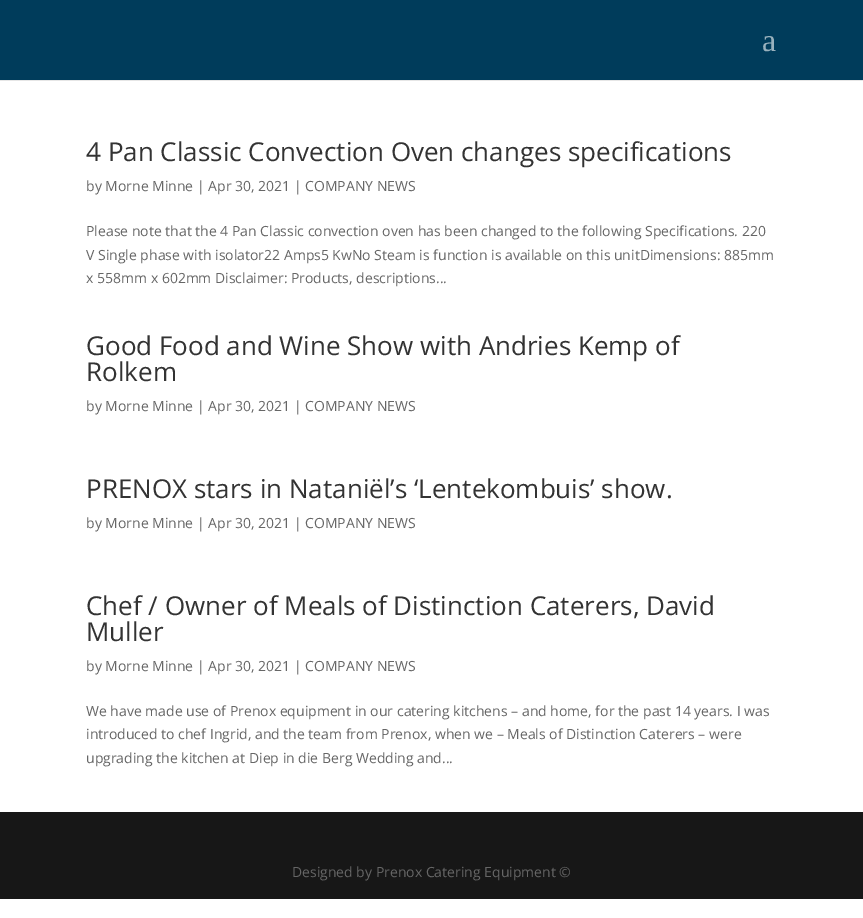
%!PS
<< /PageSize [863 918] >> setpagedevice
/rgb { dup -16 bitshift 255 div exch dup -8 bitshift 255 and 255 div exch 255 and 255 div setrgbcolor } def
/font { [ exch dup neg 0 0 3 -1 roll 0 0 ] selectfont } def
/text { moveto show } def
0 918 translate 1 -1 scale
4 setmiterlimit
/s1 { /LiberationSerif-Regular 32 font 16#99B1BD rgb } def
/s2 { /OpenSans-Regular 26 font 16#333333 rgb } def
/s3 { /OpenSans-Regular 14 font 16#666666 rgb } def
16#FFFFFF rgb
0 0 863 918 rectfill
16#E6E6E6 rgb
0 80 863 1 rectfill
16#003C5B rgb
0 0 863 80 rectfill
s1
(a) 762 51 text
s2
(4 Pan Classic Convection Oven changes specifications) 86 161 text
s3
(by Morne Minne | Apr 30, 2021 | COMPANY NEWS) 86 191 text
(Please note that the 4 Pan Classic convection oven has been changed to the following Specifications. 220) 86 236 text
(V Single phase with isolator22 Amps5 KwNo Steam is function is available on this unitDimensions: 885mm) 86 260 text
(x 558mm x 602mm Disclaimer: Products, descriptions...) 86 283 text
s2
(Good Food and Wine Show with Andries Kemp of) 86 355 text
(Rolkem) 86 381 text
s3
(by Morne Minne | Apr 30, 2021 | COMPANY NEWS) 86 411 text
s2
(PRENOX stars in Nataniël’s ‘Lentekombuis’ show.) 86 498 text
s3
(by Morne Minne | Apr 30, 2021 | COMPANY NEWS) 86 528 text
s2
(Chef / Owner of Meals of Distinction Caterers, David) 86 615 text
(Muller) 86 641 text
s3
(by Morne Minne | Apr 30, 2021 | COMPANY NEWS) 86 671 text
(We have made use of Prenox equipment in our catering kitchens – and home, for the past 14 years. I was) 86 716 text
(introduced to chef Ingrid, and the team from Prenox, when we – Meals of Distinction Caterers – were) 86 739 text
(upgrading the kitchen at Diep in die Berg Wedding and...) 86 763 text
16#171717 rgb
0 812 863 87 rectfill
s3
(Designed by Prenox Catering Equipment ©) 292 877 text
showpage
